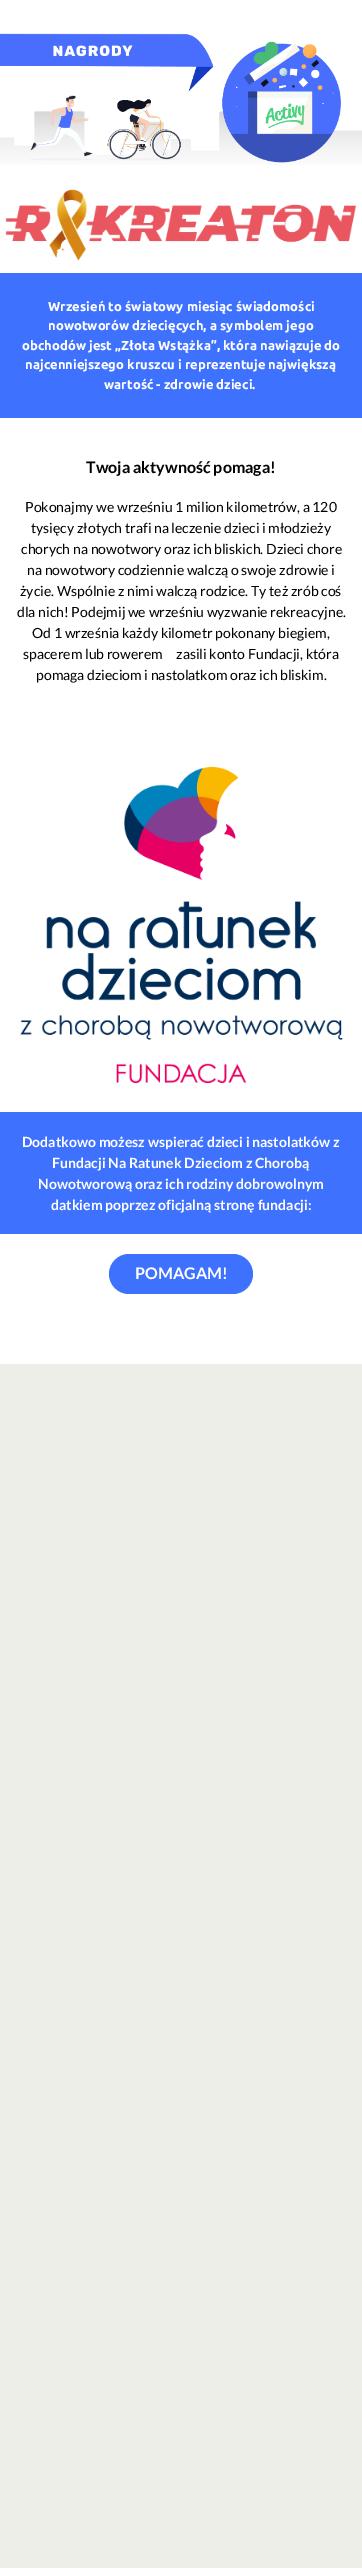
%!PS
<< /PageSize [362 2568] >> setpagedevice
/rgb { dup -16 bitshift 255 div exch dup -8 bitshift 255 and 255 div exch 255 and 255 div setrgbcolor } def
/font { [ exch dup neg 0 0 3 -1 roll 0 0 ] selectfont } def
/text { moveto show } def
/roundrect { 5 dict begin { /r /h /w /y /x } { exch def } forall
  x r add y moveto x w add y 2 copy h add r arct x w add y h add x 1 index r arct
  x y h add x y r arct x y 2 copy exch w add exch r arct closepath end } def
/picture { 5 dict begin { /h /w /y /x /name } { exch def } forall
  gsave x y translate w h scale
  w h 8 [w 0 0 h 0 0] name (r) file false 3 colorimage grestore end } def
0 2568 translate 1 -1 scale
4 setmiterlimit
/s1 { /Ubuntu-Bold 13 font 16#FFFFFF rgb } def
/s2 { /Lato-Bold 16 font 16#000000 rgb } def
/s3 { /Lato-Regular 14 font 16#000000 rgb } def
/s4 { /Lato-Bold 14 font 16#FFFFFF rgb } def
/s5 { /Lato-Bold 16 font 16#FFFFFF rgb } def
16#EEEEE8 rgb
0 0 362 2568 rectfill
16#FFFFFF rgb
0 0 362 273 rectfill
(pic1.raw) 0 33 362 132 picture
(pic2.raw) 5 189 352 72 picture
16#3F71FF rgb
0 273 362 145 rectfill
s1
(Wrzesień to światowy miesiąc świadomości) 48 311 text
(nowotworów dziecięcych, a symbolem jego) 48 330 text
(obchodów jest „Złota Wstążka”, która nawiązuje do) 22 350 text
(najcenniejszego kruszcu i reprezentuje największą) 25 369 text
(wartość - zdrowie dzieci.) 104 389 text
0 418 362 694 rectfill
s2
(Twoja aktywność pomaga!) 86 473 text
s3
(Pokonajmy we wrześniu 1 milion kilometrów, a 120) 25 512 text
(tysięcy złotych trafi na leczenie dzieci i młodzieży) 31 533 text
(chorych na nowotwory oraz ich bliskich. Dzieci chore) 21 554 text
(na nowotwory codziennie walczą o swoje zdrowie i) 27 575 text
(życie. Wspólnie z nimi walczą rodzice. Ty też zrób coś) 20 596 text
(dla nich! Podejmij we wrześniu wyzwanie rekreacyjne.) 17 617 text
(Od 1 września każdy kilometr pokonany biegiem,) 32 638 text
(spacerem lub rowerem     zasili konto Fundacji, która) 23 659 text
(pomaga dzieciom i nastolatkom oraz ich bliskim.) 36 680 text
(pic3.raw) 20 766 323 318 picture
16#3F71FF rgb
0 1112 362 122 rectfill
s4
(Dodatkowo możesz wspierać dzieci i nastolatków z) 22 1147 text
(Fundacji Na Ratunek Dzieciom z Chorobą) 52 1168 text
(Nowotworową oraz ich rodziny dobrowolnym) 38 1189 text
(datkiem poprzez oficjalną stronę fundacji:) 51 1210 text
0 1234 362 130 rectfill
16#3F71FF rgb
109 1254 144 40 20 roundrect fill
s5
(POMAGAM!) 135 1279 text
showpage
